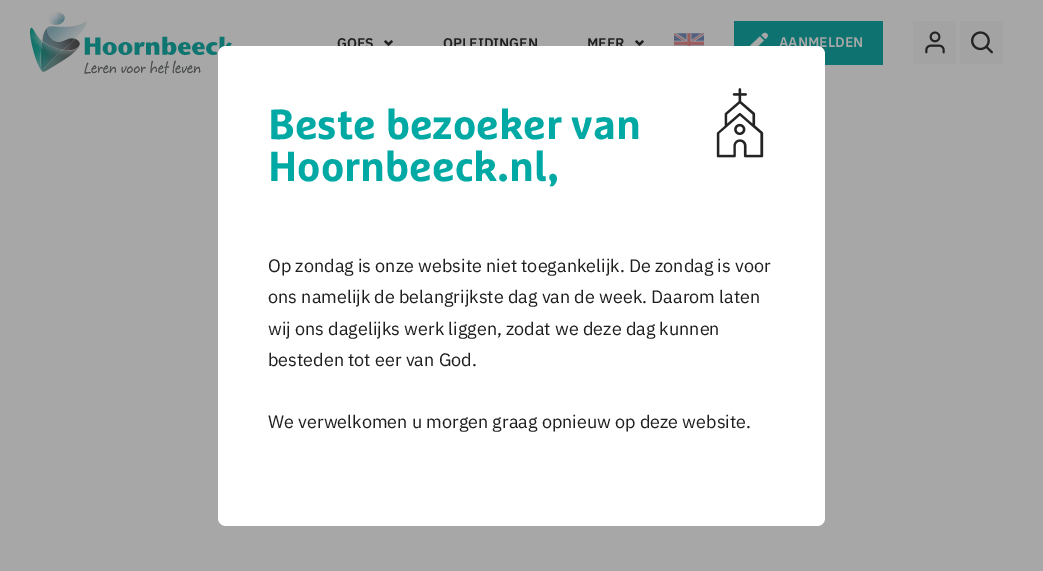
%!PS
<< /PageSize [1043 571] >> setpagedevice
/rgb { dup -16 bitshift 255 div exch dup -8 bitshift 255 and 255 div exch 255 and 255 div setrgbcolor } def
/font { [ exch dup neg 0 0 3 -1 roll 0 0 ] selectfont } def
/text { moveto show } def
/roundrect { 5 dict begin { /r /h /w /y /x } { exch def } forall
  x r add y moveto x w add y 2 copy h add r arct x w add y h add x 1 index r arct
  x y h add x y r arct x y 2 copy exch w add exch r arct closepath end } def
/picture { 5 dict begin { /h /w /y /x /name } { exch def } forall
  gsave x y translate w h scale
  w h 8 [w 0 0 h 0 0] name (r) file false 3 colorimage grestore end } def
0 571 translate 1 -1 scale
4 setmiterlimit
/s1 { /IBMPlexSans-SemiBold 14 font 16#1F1F1E rgb } def
/s2 { /IBMPlexSans-SemiBold 14 font 16#A7A7A7 rgb } def
/s3 { /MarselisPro-Bold 42 font 16#00A9A3 rgb } def
/s4 { /IBMPlexSans-Regular 18 font 16#1F1F1E rgb } def
16#A7A7A7 rgb
0 0 1043 571 rectfill
(pic1.raw) 30 12 202 62 picture
s1
(GOES) 337 48 text
(pic2.raw) 384 40 9 6 picture
(OPLEIDINGEN) 443 48 text
(MEER) 587 48 text
(pic2.raw) 635 40 9 6 picture
(pic3.raw) 674 33 30 13 picture
16#0E7370 rgb
734 21 149 44 rectfill
(pic4.raw) 749 32 19 14 picture
s2
(AANMELDEN) 779 47 text
16#A3A3A3 rgb
913 21 43 43 rectfill
(pic5.raw) 925 31 20 23 picture
960 21 43 43 rectfill
(pic6.raw) 971 31 22 23 picture
16#FFFFFF rgb
218 46 607 480 8 roundrect fill
s3
(Beste bezoeker van) 268 139 text
(Hoornbeeck.nl,) 268 181 text
(pic7.raw) 716 88 48 70 picture
s4
(Op zondag is onze website niet toegankelijk. De zondag is voor) 268 272 text
(ons namelijk de belangrijkste dag van de week. Daarom laten) 268 303 text
(wij ons dagelijks werk liggen, zodat we deze dag kunnen) 268 335 text
(besteden tot eer van God.) 268 366 text
(We verwelkomen u morgen graag opnieuw op deze website.) 268 428 text
showpage
